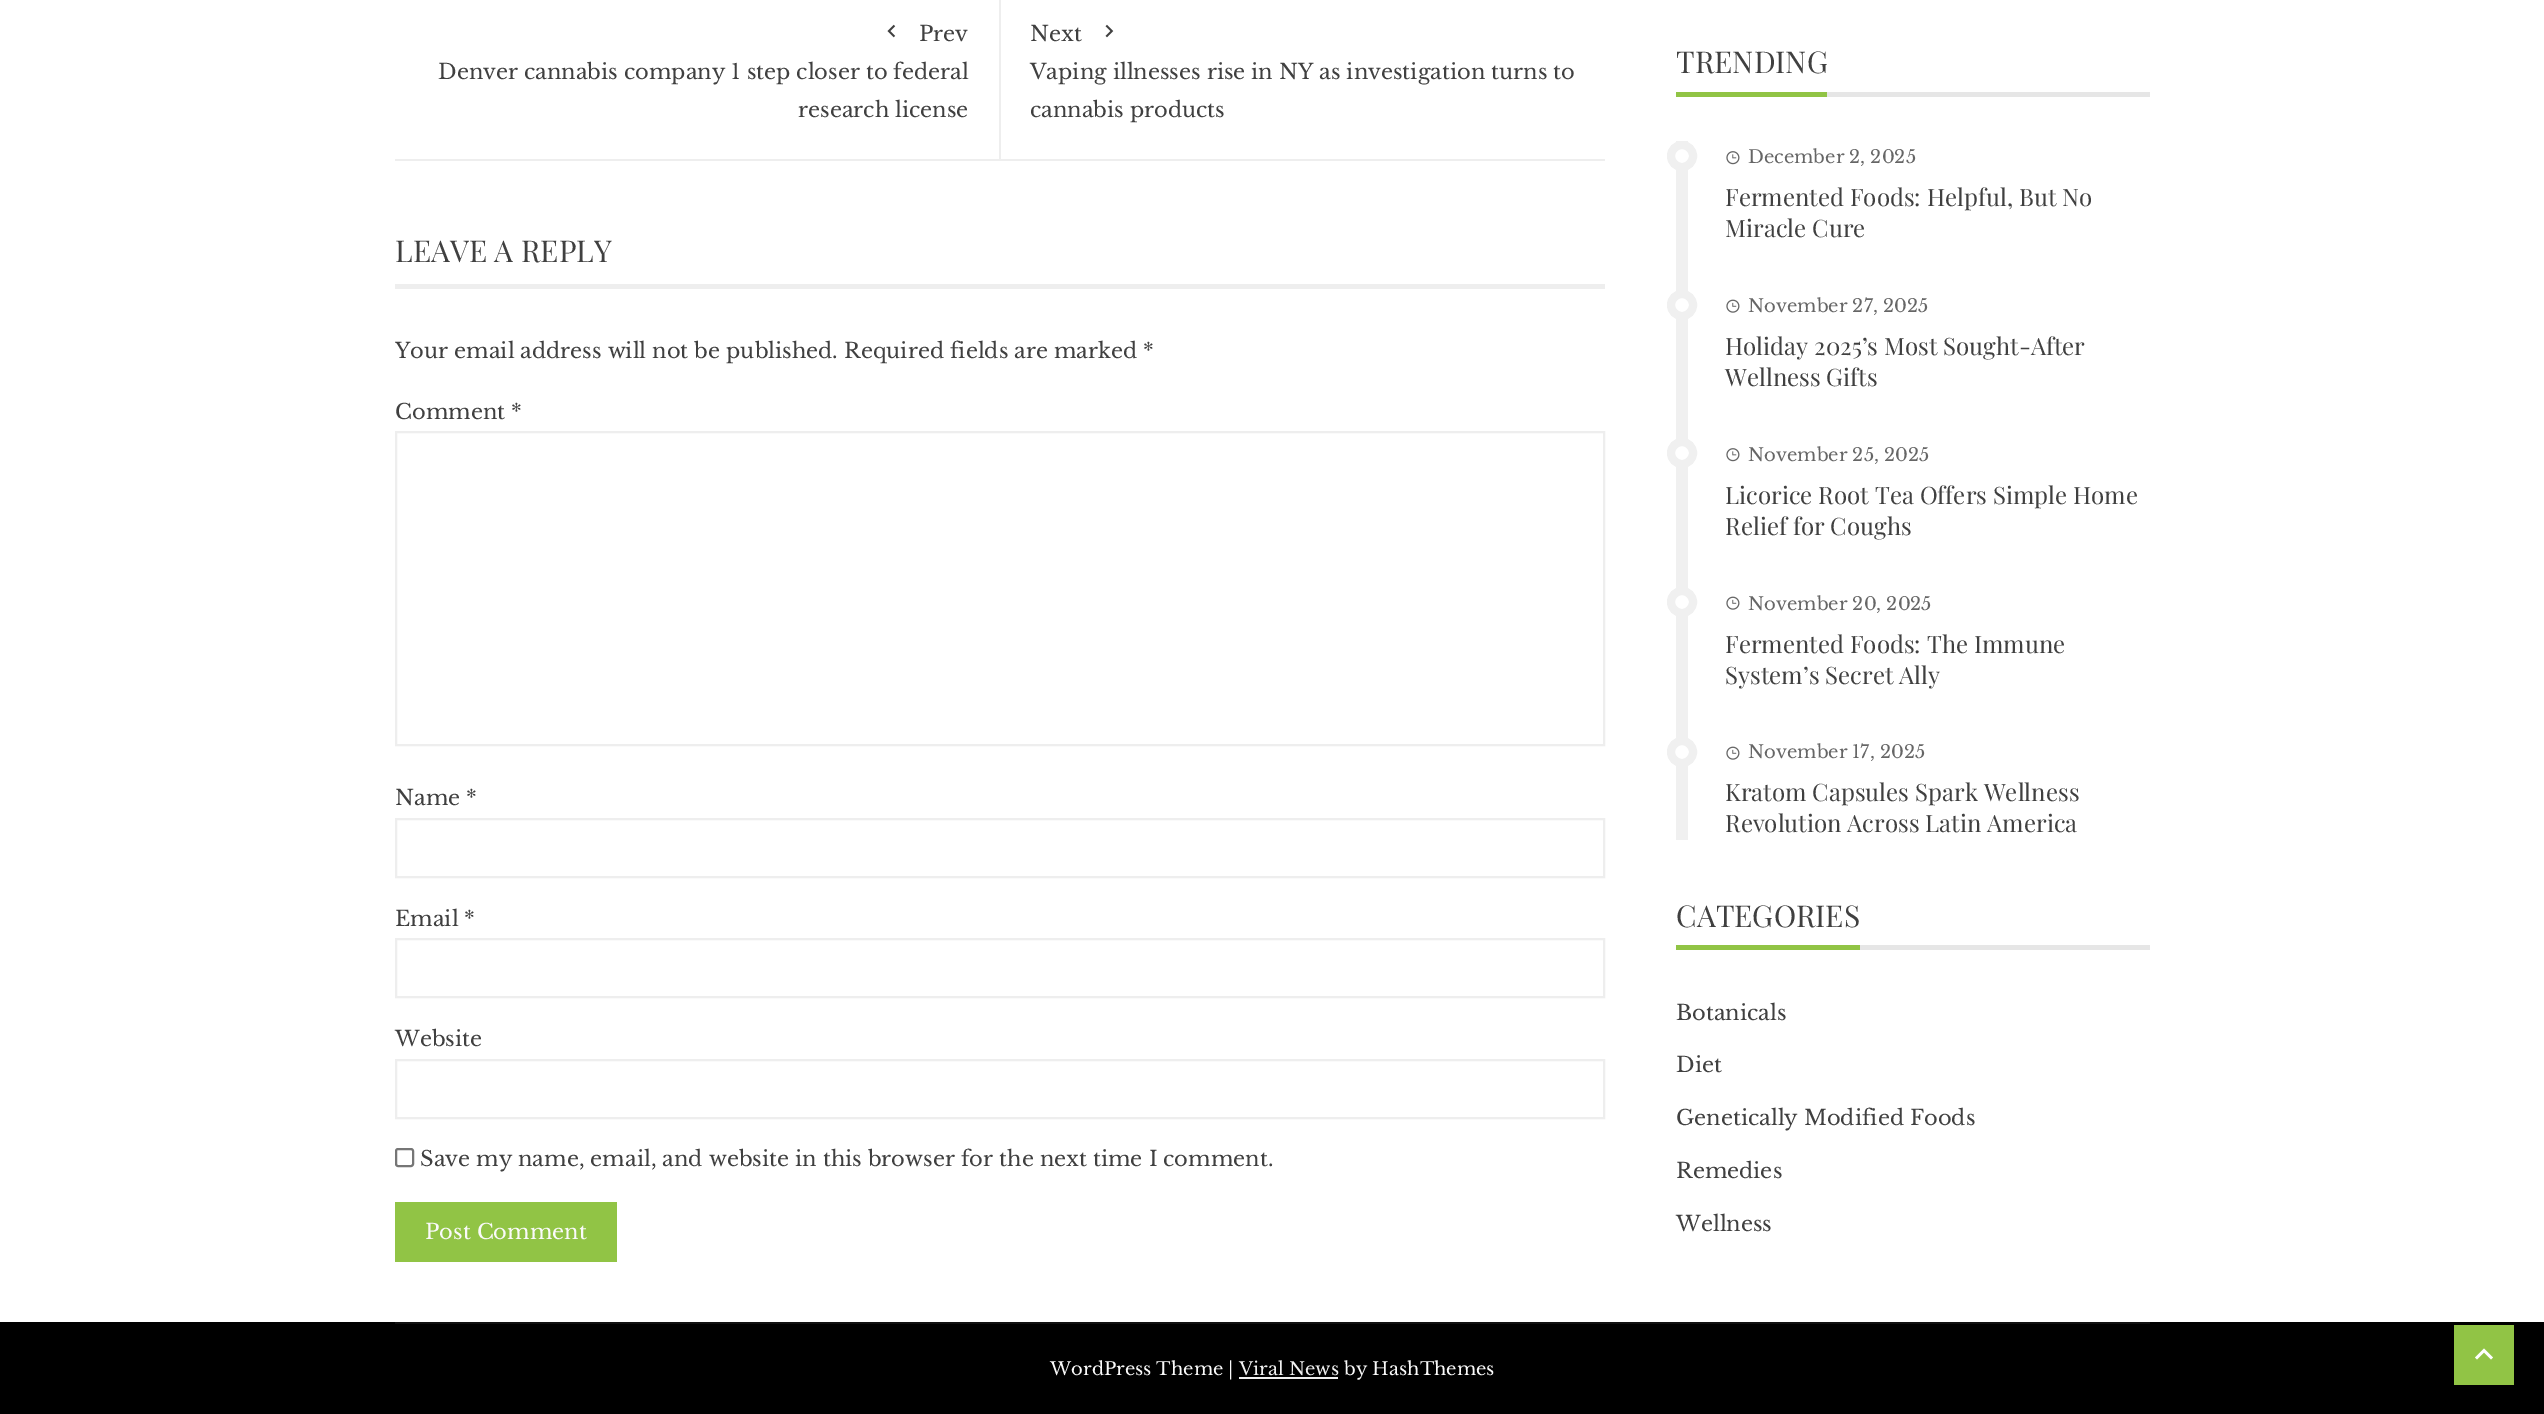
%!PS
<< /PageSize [2544 1414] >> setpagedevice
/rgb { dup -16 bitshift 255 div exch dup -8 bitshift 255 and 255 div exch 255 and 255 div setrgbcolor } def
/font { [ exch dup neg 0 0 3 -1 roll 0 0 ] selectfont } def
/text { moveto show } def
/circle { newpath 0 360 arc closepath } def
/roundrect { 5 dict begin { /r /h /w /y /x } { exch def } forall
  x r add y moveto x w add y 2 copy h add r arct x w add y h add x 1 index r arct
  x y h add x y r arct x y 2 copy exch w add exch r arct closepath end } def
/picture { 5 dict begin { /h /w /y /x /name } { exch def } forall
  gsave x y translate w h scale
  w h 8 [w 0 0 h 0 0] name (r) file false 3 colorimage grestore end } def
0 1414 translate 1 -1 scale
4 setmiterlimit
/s1 { /LibreBaskerville-Regular 21 font 16#404040 rgb } def
/s2 { /PlayfairDisplay-Regular 30 font 16#404040 rgb } def
/s3 { /LibreBaskerville-Regular 21 font 16#FAFAFA rgb } def
/s4 { /LibreBaskerville-Regular 18 font 16#666666 rgb } def
/s5 { /PlayfairDisplay-Regular 24 font 16#404040 rgb } def
/s6 { /LibreBaskerville-Regular 18 font 16#FAFAFA rgb } def
/s7 { /LibreBaskerville-Regular 18 font 16#F0F0F0 rgb } def
16#FFFFFF rgb
0 0 2544 1414 rectfill
16#EEEEEE rgb
395 159 1210 2 rectfill
999 0 2 159 rectfill
(pic1.raw) 887 24 9 14 picture
s1
(Prev) 919 41 text
(Denver cannabis company 1 step closer to federal) 438 79 text
(research license) 798 117 text
(Next) 1030 41 text
(pic2.raw) 1105 24 9 14 picture
(Vaping illnesses rise in NY as investigation turns to) 1030 79 text
(cannabis products) 1030 117 text
16#EEEEEE rgb
395 284 1210 5 rectfill
s2
(LEAVE A REPLY) 395 262 text
s1
(Your email address will not be published. Required fields are marked *) 395 358 text
(Comment *) 395 419 text
16#EEEEEE rgb
2 setlinewidth
396 432 1208 313 rectstroke
s1
(Name *) 395 805 text
16#EEEEEE rgb
396 819 1208 58 rectstroke
s1
(Email *) 395 926 text
16#EEEEEE rgb
396 939 1208 58 rectstroke
s1
(Website) 395 1046 text
16#EEEEEE rgb
396 1060 1208 58 rectstroke
16#767676 rgb
396 1149 17 17 2 roundrect stroke
s1
(Save my name, email, and website in this browser for the next time I comment.) 420 1166 text
16#91C445 rgb
395 1202 222 60 rectfill
s3
(Post Comment) 425 1239 text
16#E6E6E6 rgb
1827 92 323 5 rectfill
s2
(TRENDING) 1676 73 text
16#91C445 rgb
1676 92 151 5 rectfill
16#F0F0F0 rgb
1676 141 12 699 rectfill
16#FFFFFF rgb
1682 156 11 circle gsave fill grestore
16#F0F0F0 rgb
8 setlinewidth
stroke
(pic3.raw) 1726 151 14 14 picture
s4
(December 2, 2025) 1748 163 text
s5
(Fermented Foods: Helpful, But No) 1725 206 text
(Miracle Cure) 1725 237 text
16#FFFFFF rgb
1682 305 11 circle gsave fill grestore
16#F0F0F0 rgb
stroke
(pic4.raw) 1726 299 14 14 picture
s4
(November 27, 2025) 1748 312 text
s5
(Holiday 2025’s Most Sought-After) 1725 355 text
(Wellness Gifts) 1725 386 text
16#FFFFFF rgb
1682 453 11 circle gsave fill grestore
16#F0F0F0 rgb
stroke
(pic3.raw) 1726 448 14 14 picture
s4
(November 25, 2025) 1748 461 text
s5
(Licorice Root Tea Offers Simple Home) 1725 504 text
(Relief for Coughs) 1725 535 text
16#FFFFFF rgb
1682 602 11 circle gsave fill grestore
16#F0F0F0 rgb
stroke
(pic4.raw) 1726 596 14 14 picture
s4
(November 20, 2025) 1748 610 text
s5
(Fermented Foods: The Immune) 1725 653 text
(System’s Secret Ally) 1725 684 text
16#FFFFFF rgb
1682 752 11 circle gsave fill grestore
16#F0F0F0 rgb
stroke
(pic4.raw) 1726 746 14 14 picture
s4
(November 17, 2025) 1748 758 text
s5
(Kratom Capsules Spark Wellness) 1725 801 text
(Revolution Across Latin America) 1725 832 text
16#E6E6E6 rgb
1860 945 290 5 rectfill
s2
(CATEGORIES) 1676 927 text
16#91C445 rgb
1676 945 184 5 rectfill
s1
(Botanicals) 1676 1020 text
(Diet) 1676 1072 text
(Genetically Modified Foods) 1676 1125 text
(Remedies) 1676 1178 text
(Wellness) 1676 1231 text
16#000000 rgb
0 1322 2544 92 rectfill
16#111111 rgb
395 1322 1755 2 rectfill
s6
(WordPress Theme |) 1050 1375 text
s7
(Viral News) 1239 1375 text
1239 1377 99 2 rectfill
s6
(by HashThemes) 1344 1375 text
16#91C445 rgb
2454 1325 60 60 rectfill
16#FFFFFF rgb
2477 1359.5 moveto 2484 1352.5 lineto 2491 1359.5 lineto 2493 1357.5 lineto 2484 1348.5 lineto 2475 1357.5 lineto closepath fill
showpage
